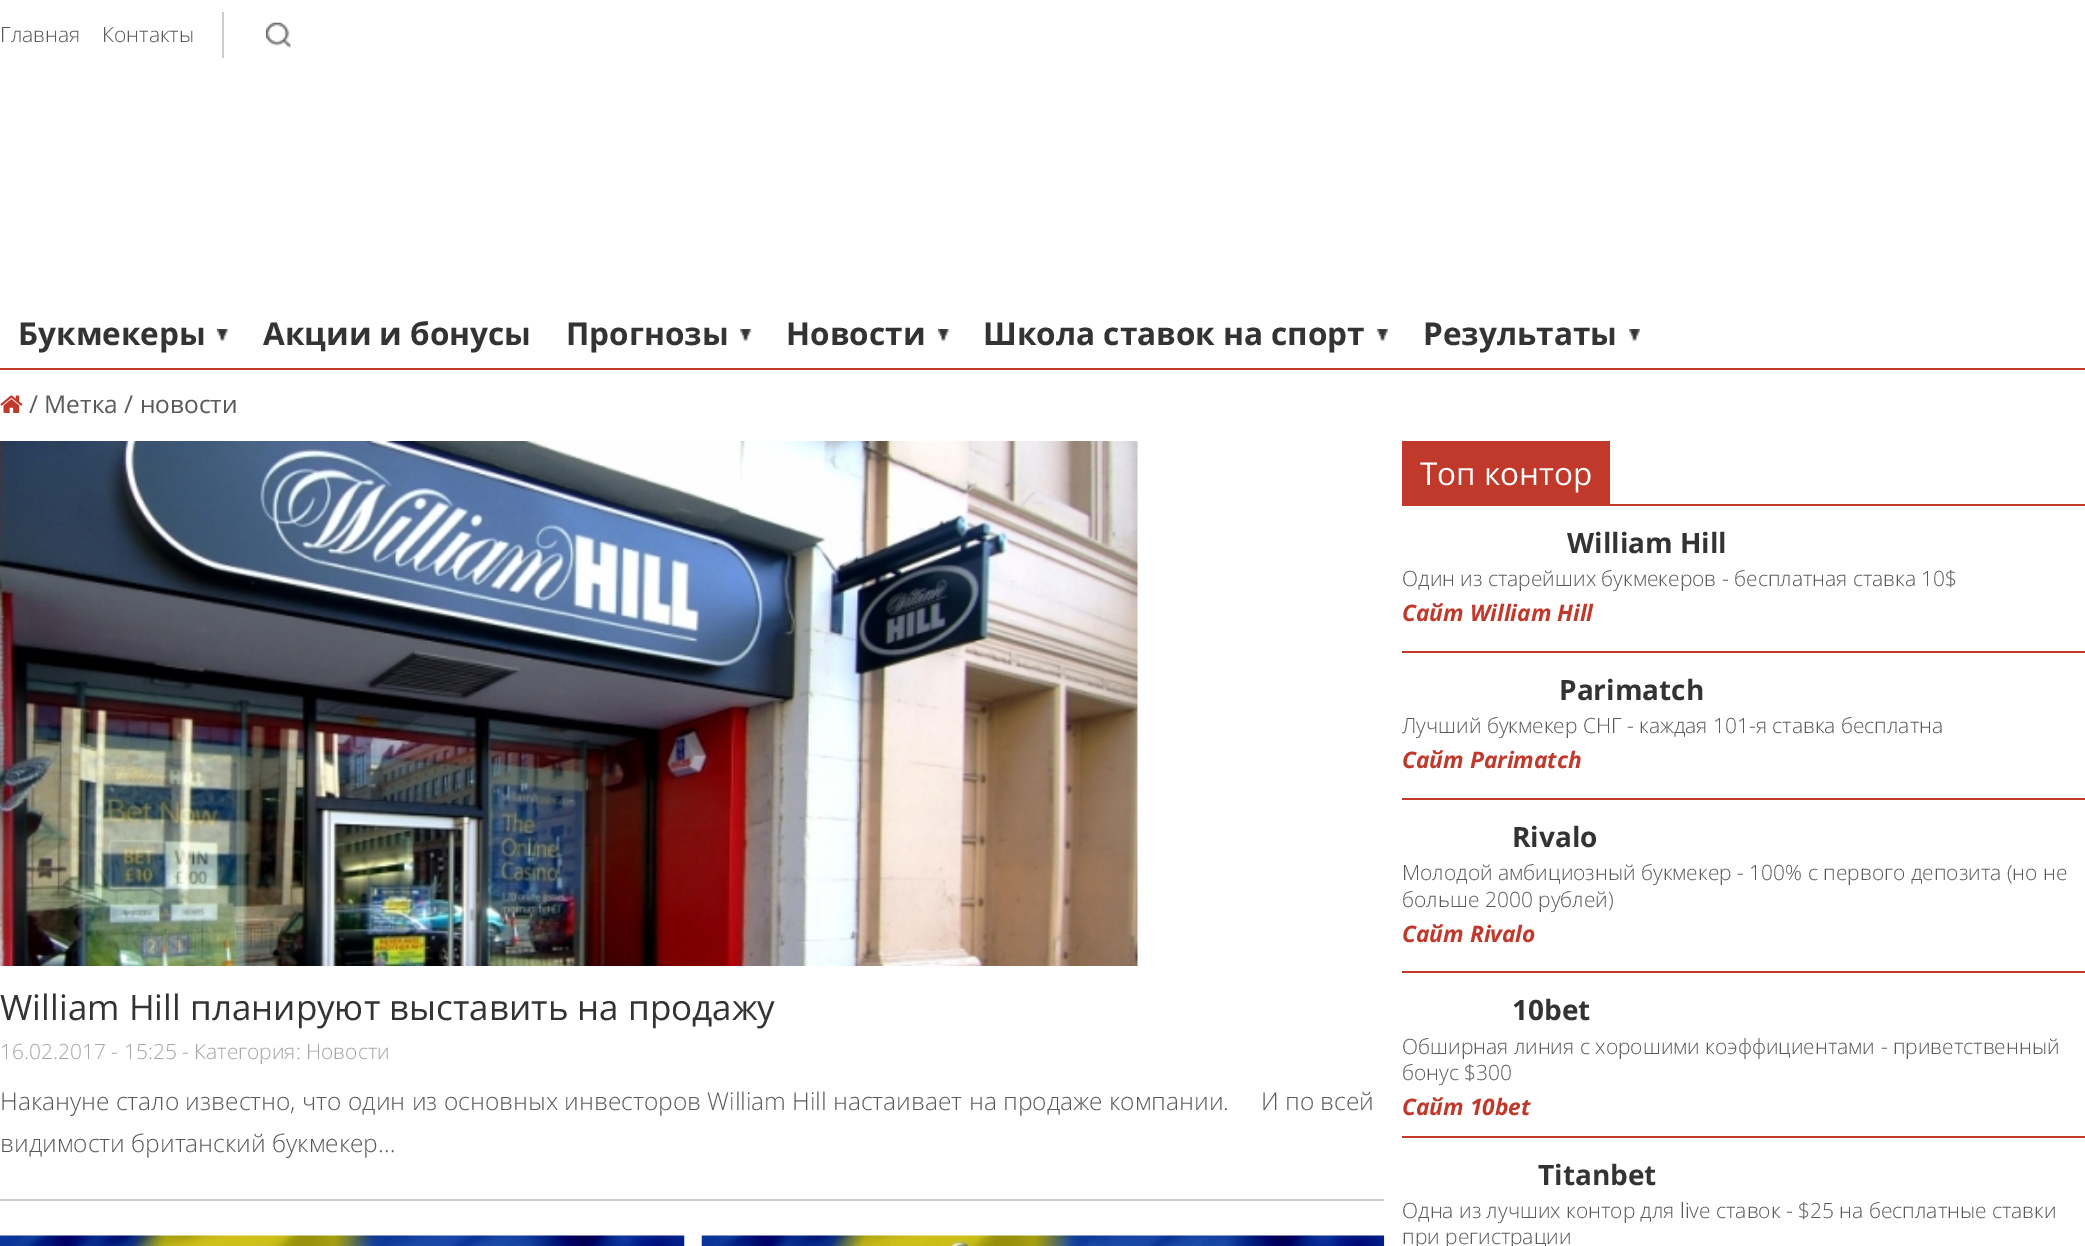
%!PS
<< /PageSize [2085 1246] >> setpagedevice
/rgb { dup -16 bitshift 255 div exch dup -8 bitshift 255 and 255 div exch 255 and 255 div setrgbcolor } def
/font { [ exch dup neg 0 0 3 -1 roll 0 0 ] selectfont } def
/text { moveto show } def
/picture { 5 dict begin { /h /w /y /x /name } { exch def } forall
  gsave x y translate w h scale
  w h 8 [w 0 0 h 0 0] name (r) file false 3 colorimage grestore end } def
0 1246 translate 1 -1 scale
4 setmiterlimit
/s1 { /OpenSans-Light 21 font 16#595959 rgb } def
/s2 { /OpenSans-Bold 31.5 font 16#333333 rgb } def
/s3 { /OpenSans-Regular 24.5 font 16#595959 rgb } def
/s4 { /OpenSans-Regular 35 font 16#333333 rgb } def
/s5 { /OpenSans-Light 21 font 16#A3A4A5 rgb } def
/s6 { /OpenSans-Light 24.5 font 16#595959 rgb } def
/s7 { /OpenSans-Regular 31.5 font 16#FFFFFF rgb } def
/s8 { /OpenSans-Bold 28 font 16#333333 rgb } def
/s9 { /OpenSans-BoldItalic 22.75 font 16#C0392B rgb } def
16#FFFFFF rgb
0 0 2085 1246 rectfill
s1
(Главная) 0 42 text
(Контакты) 102 42 text
16#CCCCCC rgb
222 12 2 46 rectfill
(pic1.raw) 266 22 25 26 picture
16#C0392B rgb
0 368 2085 2 rectfill
s2
(Букмекеры) 18 345 text
(pic2.raw) 217 329 11 13 picture
(Акции и бонусы) 263 345 text
(Прогнозы) 566 345 text
(pic3.raw) 740 329 11 13 picture
(Новости) 786 345 text
(pic2.raw) 938 329 11 13 picture
(Школа ставок на спорт) 983 345 text
(pic4.raw) 1377 329 11 13 picture
(Результаты) 1423 345 text
(pic4.raw) 1629 329 11 13 picture
(pic5.raw) 0 395 23 18 picture
s3
(/ Метка / новости) 29 413 text
(pic6.raw) 0 441 1138 525 picture
s4
(William Hill планируют выставить на продажу) 0 1020 text
s5
(16.02.2017 - 15:25 - Категория: Новости) 0 1059 text
s6
(Накануне стало известно, что один из основных инвесторов William Hill настаивает на продаже компании.     И по всей) 0 1110 text
(видимости британский букмекер…) 0 1152 text
16#CCCCCC rgb
0 1199 1384 2 rectfill
(pic7.raw) 0 1235 685 11 picture
(pic8.raw) 701 1235 684 11 picture
16#C0392B rgb
1402 441 208 63 rectfill
s7
(Топ контор) 1420 485 text
16#C0392B rgb
1402 504 683 2 rectfill
s8
(William Hill) 1567 553 text
s1
(Один из старейших букмекеров - бесплатная ставка 10$) 1402 586 text
s9
(Сайт William Hill) 1402 621 text
1402 651 683 2 rectfill
s8
(Parimatch) 1559 700 text
s1
(Лучший букмекер СНГ - каждая 101-я ставка бесплатна) 1402 733 text
s9
(Сайт Parimatch) 1402 768 text
1402 798 683 2 rectfill
s8
(Rivalo) 1512 847 text
s1
(Молодой амбициозный букмекер - 100% с первого депозита \(но не) 1402 880 text
(больше 2000 рублей\)) 1402 907 text
s9
(Сайт Rivalo) 1402 942 text
1402 971 683 2 rectfill
s8
(10bet) 1512 1020 text
s1
(Обширная линия с хорошими коэффициентами - приветственный) 1402 1054 text
(бонус $300) 1402 1080 text
s9
(Сайт 10bet) 1402 1115 text
1402 1136 683 2 rectfill
s8
(Titanbet) 1538 1185 text
s1
(Одна из лучших контор для live ставок - $25 на бесплатные ставки) 1402 1218 text
(при регистрации) 1402 1244 text
showpage
